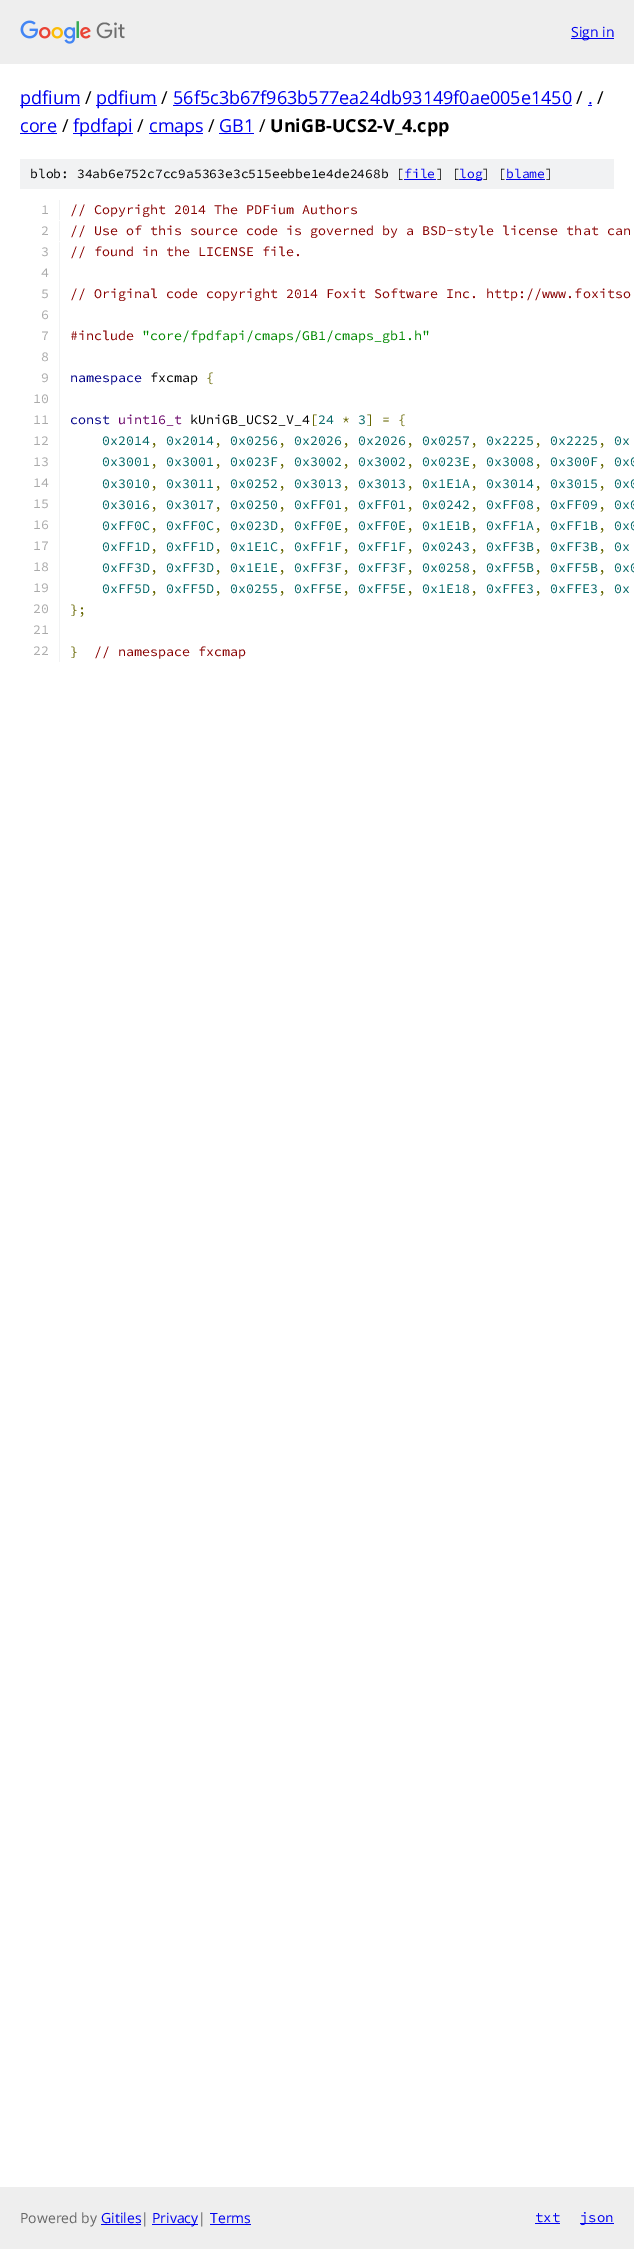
%!PS
<< /PageSize [634 2249] >> setpagedevice
/rgb { dup -16 bitshift 255 div exch dup -8 bitshift 255 and 255 div exch 255 and 255 div setrgbcolor } def
/font { [ exch dup neg 0 0 3 -1 roll 0 0 ] selectfont } def
/text { moveto show } def
/picture { 5 dict begin { /h /w /y /x /name } { exch def } forall
  gsave x y translate w h scale
  w h 8 [w 0 0 h 0 0] name (r) file false 3 colorimage grestore end } def
0 2249 translate 1 -1 scale
4 setmiterlimit
/s1 { /OpenSans-Regular 14 font 16#0000EE rgb } def
/s2 { /OpenSans-Regular 18 font 16#0000EE rgb } def
/s3 { /OpenSans-Regular 18 font 16#000000 rgb } def
/s4 { /OpenSans-Bold 18 font 16#000000 rgb } def
/s5 { /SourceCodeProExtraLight-ExtraLight 13 font 16#000000 rgb } def
/s6 { /SourceCodeProExtraLight-ExtraLight 13 font 16#0000EE rgb } def
/s7 { /SourceCodeProExtraLight-ExtraLight 13.35 font 16#AAAAAA rgb } def
/s8 { /SourceCodeProExtraLight-ExtraLight 13.35 font 16#880000 rgb } def
/s9 { /SourceCodeProExtraLight-ExtraLight 13.35 font 16#008800 rgb } def
/s10 { /SourceCodeProExtraLight-ExtraLight 13.35 font 16#000088 rgb } def
/s11 { /SourceCodeProExtraLight-ExtraLight 13.35 font 16#000000 rgb } def
/s12 { /SourceCodeProExtraLight-ExtraLight 13.35 font 16#666600 rgb } def
/s13 { /SourceCodeProExtraLight-ExtraLight 13.35 font 16#660066 rgb } def
/s14 { /SourceCodeProExtraLight-ExtraLight 13.35 font 16#006666 rgb } def
/s15 { /OpenSans-Regular 14 font 16#666666 rgb } def
/s16 { /SourceCodeProExtraLight-ExtraLight 14 font 16#0000EE rgb } def
16#FFFFFF rgb
0 0 634 2249 rectfill
16#EEEEEE rgb
0 0 634 64 rectfill
(pic1.raw) 20 20 105 24 picture
16#0000EE rgb
571 38 43 1 rectfill
s1
(Sign in) 571 37 text
20 105 60 1 rectfill
s2
(pdfium) 20 104 text
s3
(/) 85 104 text
16#0000EE rgb
96 105 61 1 rectfill
(pdfium) 96 104 text
s3
(/) 161 104 text
s2
(56f5c3b67f963b577ea24db93149f0ae005e1450) 173 104 text
173 105 399 1 rectfill
s3
(/) 576 104 text
s2
(.) 588 104 text
588 105 4 1 rectfill
s3
(/) 597 104 text
s2
(core) 20 132 text
20 133 37 1 rectfill
s3
(/) 62 132 text
16#0000EE rgb
73 133 60 1 rectfill
(fpdfapi) 73 132 text
s3
(/) 137 132 text
16#0000EE rgb
149 133 54 1 rectfill
(cmaps) 149 132 text
s3
(/) 208 132 text
s2
(GB1) 219 132 text
219 133 35 1 rectfill
s3
(/) 259 132 text
s4
(UniGB-UCS2-V_4.cpp) 270 132 text
16#F1F2F3 rgb
20 159 594 30 rectfill
s5
(blob: 34ab6e752c7cc9a5363e3c515eebbe1e4de2468b [) 30 178 text
s6
(file) 404 178 text
404 179 32 1 rectfill
s5
(] [) 436 178 text
16#0000EE rgb
459 179 23 1 rectfill
(log) 459 178 text
s5
(] [) 482 178 text
s6
(blame) 506 178 text
506 179 39 1 rectfill
s5
(]) 545 178 text
16#F1F2F3 rgb
59 200 1 20 rectfill
s7
(1) 41 214 text
s8
(// Copyright 2014 The PDFium Authors) 70 214 text
16#F1F2F3 rgb
59 221 1 20 rectfill
s7
(2) 41 235 text
s8
(// Use of this source code is governed by a BSD-style license that can) 70 235 text
16#F1F2F3 rgb
59 242 1 420 rectfill
s7
(3) 41 256 text
s8
(// found in the LICENSE file.) 70 256 text
s7
(4) 41 277 text
(5) 41 298 text
s8
(// Original code copyright 2014 Foxit Software Inc. http://www.foxitso) 70 298 text
s7
(6) 41 319 text
(7) 41 340 text
s8
(#include) 70 340 text
s9
("core/fpdfapi/cmaps/GB1/cmaps_gb1.h") 142 340 text
s7
(8) 41 361 text
(9) 41 382 text
s10
(namespace) 70 382 text
s11
(fxcmap) 150 382 text
s12
({) 206 382 text
s7
(10) 33 403 text
(11) 33 424 text
s10
(const) 70 424 text
s13
(uint16_t) 118 424 text
s11
(kUniGB_UCS2_V_4) 190 424 text
s12
([) 310 424 text
s14
(24) 318 424 text
s12
(*) 342 424 text
s14
(3) 358 424 text
s12
(] = {) 366 424 text
s7
(12) 33 445 text
s14
(0x2014) 102 445 text
s12
(,) 150 445 text
s14
(0x2014) 166 445 text
s12
(,) 214 445 text
s14
(0x0256) 230 445 text
s12
(,) 278 445 text
s14
(0x2026) 294 445 text
s12
(,) 342 445 text
s14
(0x2026) 358 445 text
s12
(,) 406 445 text
s14
(0x0257) 422 445 text
s12
(,) 470 445 text
s14
(0x2225) 486 445 text
s12
(,) 534 445 text
s14
(0x2225) 550 445 text
s12
(,) 598 445 text
s14
(0x) 614 445 text
s7
(13) 33 466 text
s14
(0x3001) 102 466 text
s12
(,) 150 466 text
s14
(0x3001) 166 466 text
s12
(,) 214 466 text
s14
(0x023F) 230 466 text
s12
(,) 278 466 text
s14
(0x3002) 294 466 text
s12
(,) 342 466 text
s14
(0x3002) 358 466 text
s12
(,) 406 466 text
s14
(0x023E) 422 466 text
s12
(,) 470 466 text
s14
(0x3008) 486 466 text
s12
(,) 534 466 text
s14
(0x300F) 550 466 text
s12
(,) 598 466 text
s14
(0x0) 614 466 text
s7
(14) 33 487 text
s14
(0x3010) 102 488 text
s12
(,) 150 488 text
s14
(0x3011) 166 488 text
s12
(,) 214 488 text
s14
(0x0252) 230 488 text
s12
(,) 278 488 text
s14
(0x3013) 294 488 text
s12
(,) 342 488 text
s14
(0x3013) 358 488 text
s12
(,) 406 488 text
s14
(0x1E1A) 422 488 text
s12
(,) 470 488 text
s14
(0x3014) 486 488 text
s12
(,) 534 488 text
s14
(0x3015) 550 488 text
s12
(,) 598 488 text
s14
(0x0) 614 488 text
s7
(15) 33 508 text
s14
(0x3016) 102 509 text
s12
(,) 150 509 text
s14
(0x3017) 166 509 text
s12
(,) 214 509 text
s14
(0x0250) 230 509 text
s12
(,) 278 509 text
s14
(0xFF01) 294 509 text
s12
(,) 342 509 text
s14
(0xFF01) 358 509 text
s12
(,) 406 509 text
s14
(0x0242) 422 509 text
s12
(,) 470 509 text
s14
(0xFF08) 486 509 text
s12
(,) 534 509 text
s14
(0xFF09) 550 509 text
s12
(,) 598 509 text
s14
(0x0) 614 509 text
s7
(16) 33 529 text
s14
(0xFF0C) 102 530 text
s12
(,) 150 530 text
s14
(0xFF0C) 166 530 text
s12
(,) 214 530 text
s14
(0x023D) 230 530 text
s12
(,) 278 530 text
s14
(0xFF0E) 294 530 text
s12
(,) 342 530 text
s14
(0xFF0E) 358 530 text
s12
(,) 406 530 text
s14
(0x1E1B) 422 530 text
s12
(,) 470 530 text
s14
(0xFF1A) 486 530 text
s12
(,) 534 530 text
s14
(0xFF1B) 550 530 text
s12
(,) 598 530 text
s14
(0x0) 614 530 text
s7
(17) 33 550 text
s14
(0xFF1D) 102 551 text
s12
(,) 150 551 text
s14
(0xFF1D) 166 551 text
s12
(,) 214 551 text
s14
(0x1E1C) 230 551 text
s12
(,) 278 551 text
s14
(0xFF1F) 294 551 text
s12
(,) 342 551 text
s14
(0xFF1F) 358 551 text
s12
(,) 406 551 text
s14
(0x0243) 422 551 text
s12
(,) 470 551 text
s14
(0xFF3B) 486 551 text
s12
(,) 534 551 text
s14
(0xFF3B) 550 551 text
s12
(,) 598 551 text
s14
(0x) 614 551 text
s7
(18) 33 571 text
s14
(0xFF3D) 102 572 text
s12
(,) 150 572 text
s14
(0xFF3D) 166 572 text
s12
(,) 214 572 text
s14
(0x1E1E) 230 572 text
s12
(,) 278 572 text
s14
(0xFF3F) 294 572 text
s12
(,) 342 572 text
s14
(0xFF3F) 358 572 text
s12
(,) 406 572 text
s14
(0x0258) 422 572 text
s12
(,) 470 572 text
s14
(0xFF5B) 486 572 text
s12
(,) 534 572 text
s14
(0xFF5B) 550 572 text
s12
(,) 598 572 text
s14
(0x0) 614 572 text
s7
(19) 33 592 text
s14
(0xFF5D) 102 593 text
s12
(,) 150 593 text
s14
(0xFF5D) 166 593 text
s12
(,) 214 593 text
s14
(0x0255) 230 593 text
s12
(,) 278 593 text
s14
(0xFF5E) 294 593 text
s12
(,) 342 593 text
s14
(0xFF5E) 358 593 text
s12
(,) 406 593 text
s14
(0x1E18) 422 593 text
s12
(,) 470 593 text
s14
(0xFFE3) 486 593 text
s12
(,) 534 593 text
s14
(0xFFE3) 550 593 text
s12
(,) 598 593 text
s14
(0x) 614 593 text
s7
(20) 33 613 text
s12
(};) 70 614 text
s7
(21) 33 634 text
(22) 33 655 text
s12
(}) 70 656 text
s8
(// namespace fxcmap) 94 656 text
16#EEEEEE rgb
0 2187 634 62 rectfill
s15
(Powered by) 20 2223 text
s1
(Gitiles) 101 2223 text
101 2224 40 1 rectfill
s15
(|) 141 2223 text
16#0000EE rgb
152 2224 46 1 rectfill
(Privacy) 152 2223 text
s15
(|) 198 2223 text
s1
(Terms) 210 2223 text
210 2224 41 1 rectfill
s16
(txt) 535 2222 text
535 2223 25 1 rectfill
580 2223 34 1 rectfill
(json) 580 2222 text
showpage
